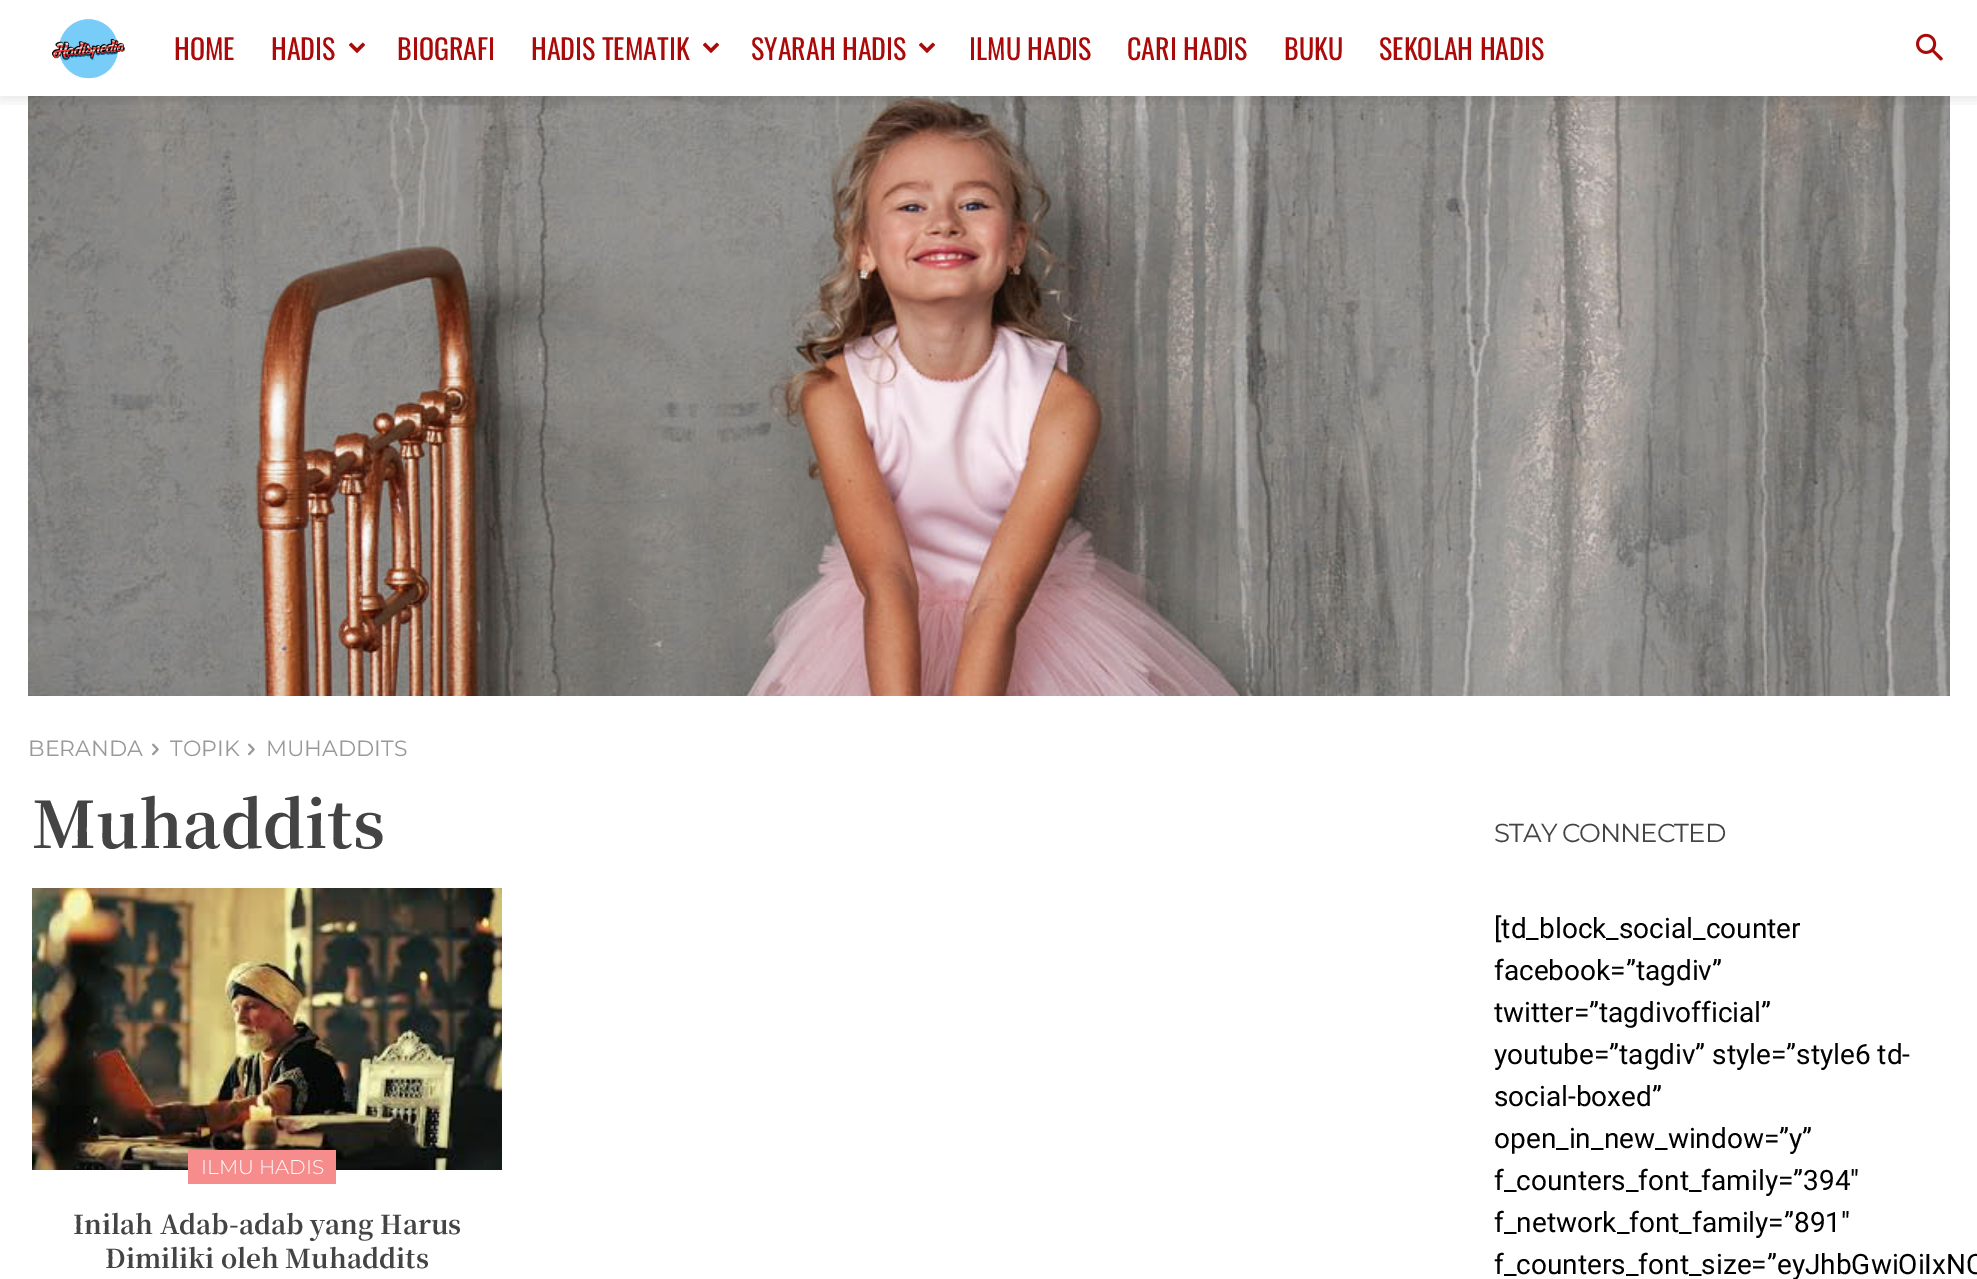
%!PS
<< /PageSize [1977 1279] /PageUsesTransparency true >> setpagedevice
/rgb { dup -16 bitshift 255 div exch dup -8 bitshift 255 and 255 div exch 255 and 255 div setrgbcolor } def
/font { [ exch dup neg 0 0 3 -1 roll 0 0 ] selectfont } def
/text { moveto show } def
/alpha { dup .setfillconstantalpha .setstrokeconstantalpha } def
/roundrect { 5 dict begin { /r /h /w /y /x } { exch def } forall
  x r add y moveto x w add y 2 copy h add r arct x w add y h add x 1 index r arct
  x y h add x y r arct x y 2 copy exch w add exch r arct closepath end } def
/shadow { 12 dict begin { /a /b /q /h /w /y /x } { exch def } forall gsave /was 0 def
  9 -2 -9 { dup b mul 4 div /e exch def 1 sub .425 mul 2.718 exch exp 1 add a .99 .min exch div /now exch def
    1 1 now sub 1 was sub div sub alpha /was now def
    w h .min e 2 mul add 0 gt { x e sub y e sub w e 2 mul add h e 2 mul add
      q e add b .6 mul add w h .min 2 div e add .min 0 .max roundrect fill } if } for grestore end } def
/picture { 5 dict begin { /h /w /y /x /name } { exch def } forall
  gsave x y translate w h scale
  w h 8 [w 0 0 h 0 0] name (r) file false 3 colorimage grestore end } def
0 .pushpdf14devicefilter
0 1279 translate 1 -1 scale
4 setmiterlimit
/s1 { /Oswald-Regular 28 font 16#AA0A0A rgb } def
/s2 { /Montserrat-Regular 22 font 16#999999 rgb } def
/s3 { /NotoSerifTC-Bold 64 font 16#444444 rgb } def
/s4 { /Montserrat-Light 20 font 16#FFFFFF rgb } def
/s5 { /NotoSerifTC-Bold 26 font 16#444444 rgb } def
/s6 { /Roboto-Regular 28 font 16#000000 rgb } def
16#FFFFFF rgb
0 0 1977 1279 rectfill
(pic4.raw) 28 96 1922 600 picture
gsave
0 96 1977 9 rectclip
16#000000 rgb
0 4 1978 96 0 6 0.09 shadow
grestore
(pic1.raw) 52 18 73 61 picture
s1
(HOME) 174 60 text
(HADIS) 271 60 text
(pic2.raw) 349 42 16 11 picture
(BIOGRAFI) 397 60 text
(HADIS TEMATIK) 531 60 text
(pic2.raw) 703 42 16 11 picture
(SYARAH HADIS) 751 60 text
(pic2.raw) 919 42 16 11 picture
(ILMU HADIS) 969 60 text
(CARI HADIS) 1127 60 text
(BUKU) 1284 60 text
(SEKOLAH HADIS) 1379 60 text
(pic3.raw) 1916 33 27 28 picture
s2
(BERANDA) 28 756 text
(pic5.raw) 152 743 7 13 picture
(TOPIK) 170 756 text
(pic5.raw) 248 743 7 13 picture
(MUHADDITS) 266 756 text
s3
(Muhaddits) 32 848 text
(pic6.raw) 32 888 470 282 picture
16#F78C8C rgb
188 1150 148 34 rectfill
s4
(ILMU HADIS) 201 1174 text
s5
(Inilah Adab-adab yang Harus) 73 1234 text
(Dimiliki oleh Muhaddits) 105 1268 text
/Montserrat-Regular 26 font
1494 842 moveto -1 0 (STAY CONNECTED) ashow
s6
([td_block_social_counter) 1494 938 text
(facebook=”tagdiv”) 1494 980 text
(twitter=”tagdivofficial”) 1494 1022 text
(youtube=”tagdiv” style=”style6 td-) 1494 1064 text
(social-boxed”) 1494 1106 text
(open_in_new_window=”y”) 1494 1148 text
(f_counters_font_family=”394″) 1494 1190 text
(f_network_font_family=”891″) 1494 1232 text
(f_counters_font_size=”eyJhbGwiOiIxNC) 1494 1274 text
.poppdf14devicefilter showpage
